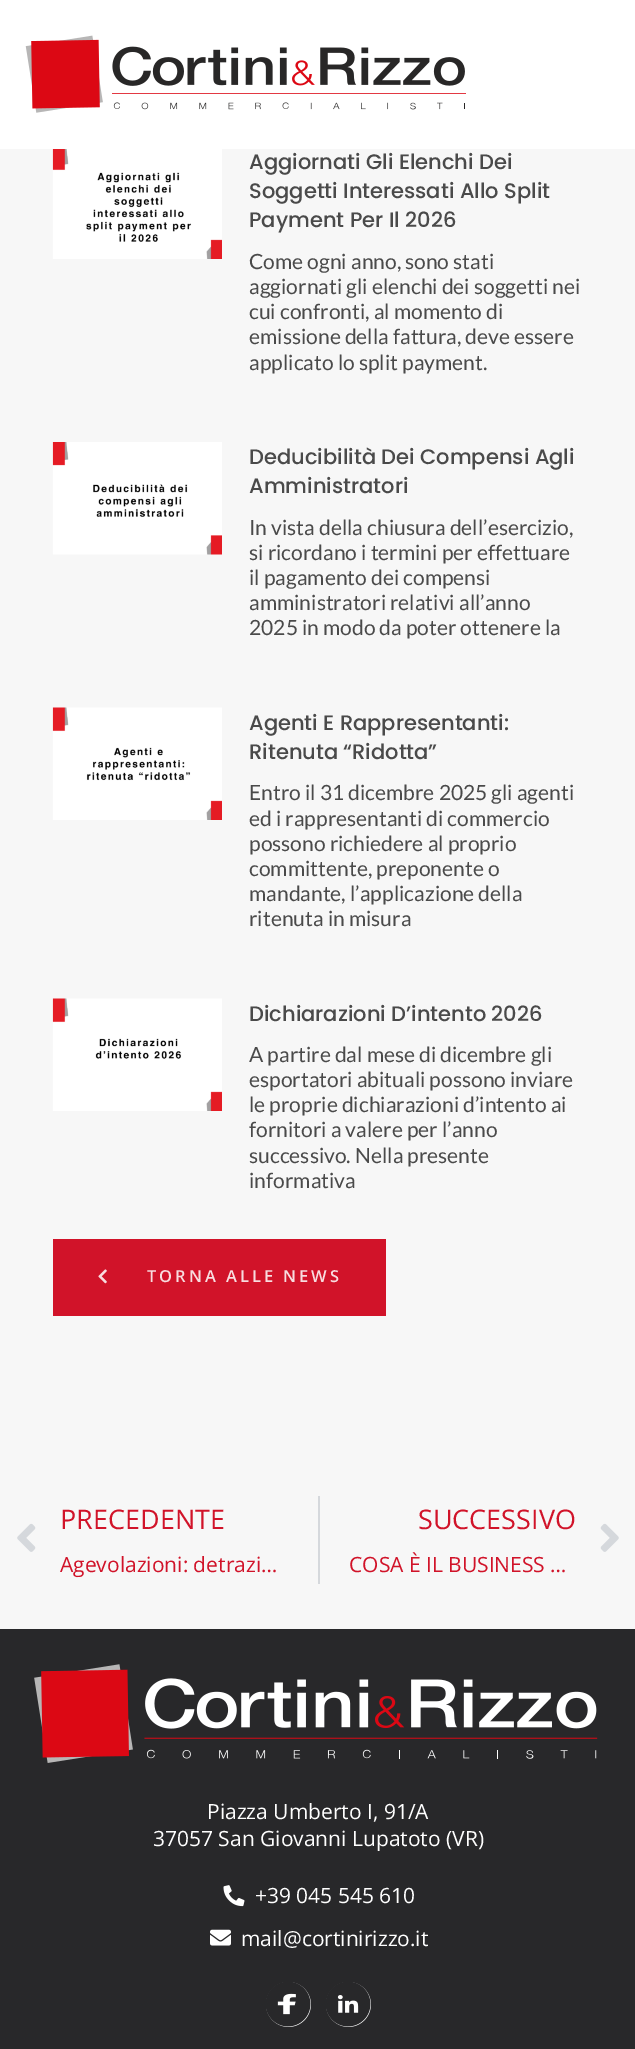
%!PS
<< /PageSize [635 2049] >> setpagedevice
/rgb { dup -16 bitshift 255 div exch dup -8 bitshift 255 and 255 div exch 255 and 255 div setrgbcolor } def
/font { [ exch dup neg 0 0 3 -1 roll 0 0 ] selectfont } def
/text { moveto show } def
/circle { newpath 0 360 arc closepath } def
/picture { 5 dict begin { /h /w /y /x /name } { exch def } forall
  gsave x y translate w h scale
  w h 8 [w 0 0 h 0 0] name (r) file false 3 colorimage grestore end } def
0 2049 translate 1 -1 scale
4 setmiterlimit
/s1 { /Poppins-Medium 21 font 16#4A4A4A rgb } def
/s2 { /Lato-Regular 21 font 16#4A4A4A rgb } def
/s3 { /OpenSans-Regular 27 font 16#D11329 rgb } def
/s4 { /OpenSans-Regular 21 font 16#D11329 rgb } def
/s5 { /OpenSans-Regular 21 font 16#FFFFFF rgb } def
16#F7F7F7 rgb
0 0 635 2049 rectfill
16#FFFFFF rgb
0 0 635 149 rectfill
(pic1.raw) 25 35 441 78 picture
(pic2.raw) 52 149 170 110 picture
s1
(Aggiornati Gli Elenchi Dei) 249 169 text
(Soggetti Interessati Allo Split) 249 198 text
(Payment Per Il 2026) 249 227 text
s2
(Come ogni anno, sono stati) 249 269 text
(aggiornati gli elenchi dei soggetti nei) 249 294 text
(cui confronti, al momento di) 249 319 text
(emissione della fattura, deve essere) 249 344 text
(applicato lo split payment.) 249 370 text
(pic3.raw) 52 442 170 113 picture
s1
(Deducibilità Dei Compensi Agli) 249 464 text
(Amministratori) 249 493 text
s2
(In vista della chiusura dell’esercizio,) 249 535 text
(si ricordano i termini per effettuare) 249 560 text
(il pagamento dei compensi) 249 585 text
(amministratori relativi all’anno) 249 610 text
(2025 in modo da poter ottenere la) 249 635 text
(pic4.raw) 52 707 170 113 picture
s1
(Agenti E Rappresentanti:) 249 730 text
(Ritenuta “Ridotta”) 249 759 text
s2
(Entro il 31 dicembre 2025 gli agenti) 249 800 text
(ed i rappresentanti di commercio) 249 826 text
(possono richiedere al proprio) 249 851 text
(committente, preponente o) 249 876 text
(mandante, l’applicazione della) 249 901 text
(ritenuta in misura) 249 926 text
(pic5.raw) 52 998 170 113 picture
s1
(Dichiarazioni D’intento 2026) 249 1021 text
s2
(A partire dal mese di dicembre gli) 249 1062 text
(esportatori abituali possono inviare) 249 1087 text
(le proprie dichiarazioni d’intento ai) 249 1112 text
(fornitori a valere per l’anno) 249 1137 text
(successivo. Nella presente) 249 1163 text
(informativa) 249 1188 text
16#D11329 rgb
53 1239 333 77 rectfill
(pic6.raw) 98 1269 9 15 picture
/OpenSans-SemiBold 16.5 font
16#F8DCDF rgb
147 1282 moveto 3 0 (TORNA ALLE NEWS) ashow
(pic7.raw) 17 1523 19 29 picture
s3
(PRECEDENTE) 60 1529 text
s4
(Agevolazioni: detrazi…) 60 1572 text
16#D5D8DC rgb
318 1496 2 88 rectfill
s3
(SUCCESSIVO) 418 1529 text
s4
(COSA È IL BUSINESS …) 349 1572 text
(pic8.raw) 600 1523 19 29 picture
16#28282A rgb
0 1629 635 420 rectfill
(pic9.raw) 34 1664 564 99 picture
s5
(Piazza Umberto I, 91/A) 207 1819 text
(37057 San Giovanni Lupatoto \(VR\)) 153 1846 text
(pic10.raw) 223 1885 22 22 picture
(+39 045 545 610) 255 1903 text
(pic11.raw) 210 1929 21 17 picture
(mail@cortinirizzo.it) 241 1946 text
288.5 2004.5 22.5 circle fill
(pic12.raw) 266 1982 45 45 picture
348.5 2004.5 22.5 circle fill
(pic13.raw) 326 1982 45 45 picture
showpage
